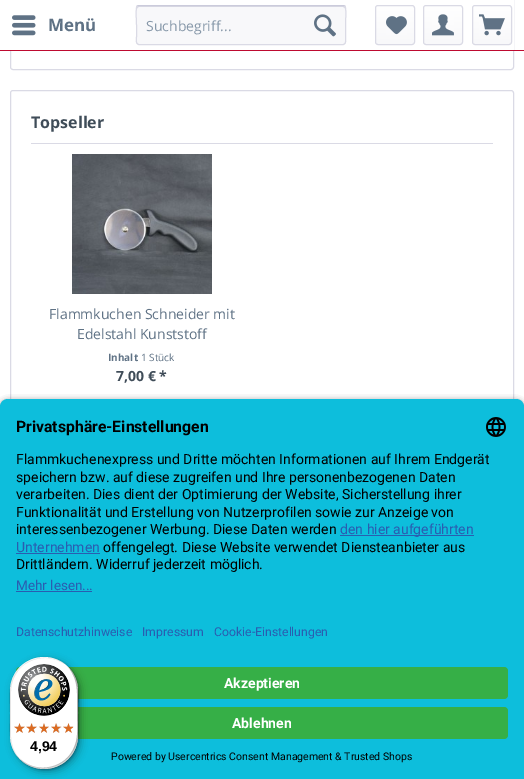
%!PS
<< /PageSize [524 779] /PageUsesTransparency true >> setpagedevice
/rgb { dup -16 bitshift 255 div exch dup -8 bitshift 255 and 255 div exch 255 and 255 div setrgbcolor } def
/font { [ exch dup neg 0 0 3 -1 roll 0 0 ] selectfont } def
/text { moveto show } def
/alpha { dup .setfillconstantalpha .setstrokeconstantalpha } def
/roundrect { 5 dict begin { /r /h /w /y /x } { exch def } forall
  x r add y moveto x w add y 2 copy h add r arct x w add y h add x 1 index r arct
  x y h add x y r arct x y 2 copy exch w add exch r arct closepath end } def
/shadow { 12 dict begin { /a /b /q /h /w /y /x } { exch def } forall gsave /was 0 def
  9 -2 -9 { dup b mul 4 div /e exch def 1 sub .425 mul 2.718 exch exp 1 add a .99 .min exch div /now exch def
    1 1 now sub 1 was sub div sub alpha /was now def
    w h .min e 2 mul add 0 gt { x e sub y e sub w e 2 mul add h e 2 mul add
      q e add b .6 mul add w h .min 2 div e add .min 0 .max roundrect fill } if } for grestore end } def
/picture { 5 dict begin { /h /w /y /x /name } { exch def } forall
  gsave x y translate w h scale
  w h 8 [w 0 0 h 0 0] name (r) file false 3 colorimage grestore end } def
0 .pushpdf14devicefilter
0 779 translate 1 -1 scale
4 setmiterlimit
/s1 { /OpenSans-Bold 17 font 16#5F7285 rgb } def
/s2 { /OpenSans-Regular 14 font 16#8798A9 rgb } def
/s3 { /OpenSans-Bold 16 font 16#3F4C58 rgb } def
/s4 { /OpenSans-Regular 14 font 16#5F7285 rgb } def
/s5 { /OpenSans-Bold 10 font 16#5F7285 rgb } def
/s6 { /OpenSans-Regular 10 font 16#5F7285 rgb } def
/s7 { /OpenSans-Bold 14 font 16#3F4C58 rgb } def
/s8 { /Roboto-Bold 15.75 font 16#000000 rgb } def
/s9 { /Roboto-Regular 14 font 16#000000 rgb } def
/s10 { /Roboto-Regular 14 font 16#2A5DB0 rgb } def
/s11 { /Roboto-Regular 13.5 font 16#2A5DB0 rgb } def
/s12 { /Roboto-Regular 12.25 font 16#2A5DB0 rgb } def
/s13 { /Roboto-Bold 14 font 16#FFFFFF rgb } def
/s14 { /Roboto-Regular 10.5 font 16#000000 rgb } def
/s15 { /LiberationSans-Bold 14 font 16#000000 rgb } def
16#FFFFFF rgb
0 0 524 779 rectfill
16#DADAE5 rgb
10.5 -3.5 503 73 2.5 roundrect stroke
16#FFFFFF rgb
10 0 504 50 rectfill
16#BE0A30 rgb
0 50 524 1 rectfill
(pic1.raw) 12 15 24 21 picture
s1
(Menü) 48 31 text
16#F8F8FA rgb
136 5 210 40 3 roundrect fill
16#DADAE5 rgb
139 7 moveto 343 7 lineto 345 8 lineto 345 9 lineto 345 8 345 6 343 6 curveto 139 6 lineto 137 6 137 8 137 9 curveto 137 8 138 7 139 7 curveto closepath fill
16#CBCBDB rgb
137 6 moveto 139 5.5 lineto 343 5.5 lineto 345 6 lineto stroke
16#DADAE5 rgb
345 6 moveto 346.5 8 345.5 22 345.5 25 curveto 345.5 36.5 lineto 345.5 38 347 44.5 343 44.5 curveto 139 44.5 lineto 135 44.5 136.5 38 136.5 36.5 curveto 136.5 25 lineto 136.5 22 135.5 8 137 6 curveto stroke
s2
(Suchbegriff...) 146 31 text
(pic2.raw) 314 14 22 23 picture
gsave 376 6 38 38 2 roundrect clip newpath
<< /ShadingType 2 /ColorSpace /DeviceRGB /Coords [395 6 395 44] /Extend [true true] /Function << /FunctionType 2 /Domain [0 1] /C0 [1 1 1] /C1 [0.973 0.973 0.98] /N 1 >> >> shfill grestore
16#DADAE5 rgb
375.5 5.5 39 39 2.5 roundrect stroke
(pic3.raw) 386 16 21 19 picture
gsave 424 6 38 38 2 roundrect clip newpath
<< /ShadingType 2 /ColorSpace /DeviceRGB /Coords [443 6 443 44] /Extend [true true] /Function << /FunctionType 2 /Domain [0 1] /C0 [1 1 1] /C1 [0.973 0.973 0.98] /N 1 >> >> shfill grestore
423.5 5.5 39 39 2.5 roundrect stroke
(pic4.raw) 432 14 22 22 picture
gsave 473 6 38 38 2 roundrect clip newpath
<< /ShadingType 2 /ColorSpace /DeviceRGB /Coords [492 6 492 44] /Extend [true true] /Function << /FunctionType 2 /Domain [0 1] /C0 [1 1 1] /C1 [0.973 0.973 0.98] /N 1 >> >> shfill grestore
472.5 5.5 39 39 2.5 roundrect stroke
(pic5.raw) 479 14 26 22 picture
10.5 90.5 503 315 2.5 roundrect stroke
31 143 462 1 rectfill
s3
(Topseller) 31 128 text
(pic6.raw) 72 154 140 140 picture
s4
(Flammkuchen Schneider mit) 49 319 text
(Edelstahl Kunststoff) 77 339 text
s5
(Inhalt) 108 361 text
s6
(1 Stück) 141 361 text
s7
(7,00 € *) 116 381 text
16#000000 rgb
0 402 524 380 8 3.5 0.8 shadow
16#0DBEDC rgb
8 399 moveto 516 399 lineto 520.5 399 524 402.5 524 407 curveto 524 609 lineto 0 609 lineto 0 407 lineto 0 402.5 3.5 399 8 399 curveto closepath fill
s8
(Privatsphäre-Einstellungen) 16 432 text
(pic7.raw) 486 417 20 20 picture
s9
(Flammkuchenexpress und Dritte möchten Informationen auf Ihrem Endgerät) 16 464 text
(speichern bzw. auf diese zugreifen und Ihre personenbezogenen Daten) 16 482 text
(verarbeiten. Dies dient der Optimierung der Website, Sicherstellung ihrer) 16 499 text
(Funktionalität und Erstellung von Nutzerprofilen sowie zur Anzeige von) 16 517 text
(interessenbezogener Werbung. Diese Daten werden) 16 534 text
16#2A5DB0 rgb
340 535 134 1 rectfill
(den hier aufgeführten) 340 534 text
(Unternehmen) 16 552 text
16 553 84 1 rectfill
s9
(offengelegt. Diese Website verwendet Diensteanbieter aus) 103 552 text
(Drittländern. Widerruf jederzeit möglich.) 16 569 text
s11
(Mehr lesen...) 16 590 text
16 591 76 1 rectfill
16#0DBEDC rgb
0 609 524 170 rectfill
s12
(Datenschutzhinweise) 16 636 text
(Impressum) 142 636 text
(Cookie-Einstellungen) 214 636 text
16#36AF47 rgb
16 667 492 32 4 roundrect fill
s13
(Akzeptieren) 224 688 text
16#36AF47 rgb
16 707 492 32 4 roundrect fill
s13
(Ablehnen) 232 728 text
s14
(Powered by Usercentrics Consent Management & Trusted Shops) 111 760 text
13 660 68 112 34 4 0.15 shadow
11 658 68 112 34 1 0.15 shadow
0.1 alpha
45 658 moveto 53 658 61 661 67 666 curveto 50 651 22 657 13 678 curveto 8 688 10 702 10 713 curveto 10 728 7 745 19 758 curveto 14 752 11 744 11 736 curveto 11 692 lineto 11 673 26 658 45 658 curveto closepath fill
0.2 alpha
21 760 moveto 38 775 66 769 75 748 curveto 80 738 78 724 78 713 curveto 78 698 81 681 69 668 curveto 79 681 77 697 77 712 curveto 77 723 79 737 74 747 curveto 66 768 38 774 21 760 curveto closepath fill
16#323232 rgb
17 756 moveto 24 764 33 769 44 769 curveto 63 769 78 754 78 735 curveto 78 691 lineto 78 680 73 671 65 664 curveto 72 671 77 680 77 690 curveto 77 734 lineto 77 753 62 768 43 768 curveto 33 768 24 763 17 756 curveto closepath fill
0.3 alpha
16#FFFFFF rgb
10 734 moveto 10 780 78 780 78 734 curveto 78 753 62 768 44 768 curveto 25 768 10 753 10 734 curveto closepath fill
1 alpha
16#000000 rgb
13 660 68 112 34 4 0.15 shadow
11 658 68 112 34 1 0.15 shadow
16#FFFFFF rgb
10 657 68 112 34 roundrect fill
0.1 alpha
16#000000 rgb
45 658 moveto 53 658 61 661 67 666 curveto 50 651 22 657 13 678 curveto 8 688 10 702 10 713 curveto 10 728 7 745 19 758 curveto 14 752 11 744 11 736 curveto 11 692 lineto 11 673 26 658 45 658 curveto closepath fill
0.2 alpha
21 760 moveto 38 775 66 769 75 748 curveto 80 738 78 724 78 713 curveto 78 698 81 681 69 668 curveto 79 681 77 697 77 712 curveto 77 723 79 737 74 747 curveto 66 768 38 774 21 760 curveto closepath fill
16#323232 rgb
17 756 moveto 24 764 33 769 44 769 curveto 63 769 78 754 78 735 curveto 78 691 lineto 78 680 73 671 65 664 curveto 72 671 77 680 77 690 curveto 77 734 lineto 77 753 62 768 43 768 curveto 33 768 24 763 17 756 curveto closepath fill
0.3 alpha
16#FFFFFF rgb
10 734 moveto 10 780 78 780 78 734 curveto 78 753 62 768 44 768 curveto 25 768 10 753 10 734 curveto closepath fill
1 alpha
(pic8.raw) 18 664 52 52 picture
(pic9.raw) 14 723 11 10 picture
(pic10.raw) 27 723 10 10 picture
(pic11.raw) 39 723 10 10 picture
(pic12.raw) 51 723 11 10 picture
(pic12.raw) 63 723 11 10 picture
(pic13.raw) 14 723 11 10 picture
(pic14.raw) 26 723 11 10 picture
(pic15.raw) 39 723 10 10 picture
(pic16.raw) 51 723 10 10 picture
(pic17.raw) 63 723 10 10 picture
s15
(4,94) 30 751 text
.poppdf14devicefilter showpage
